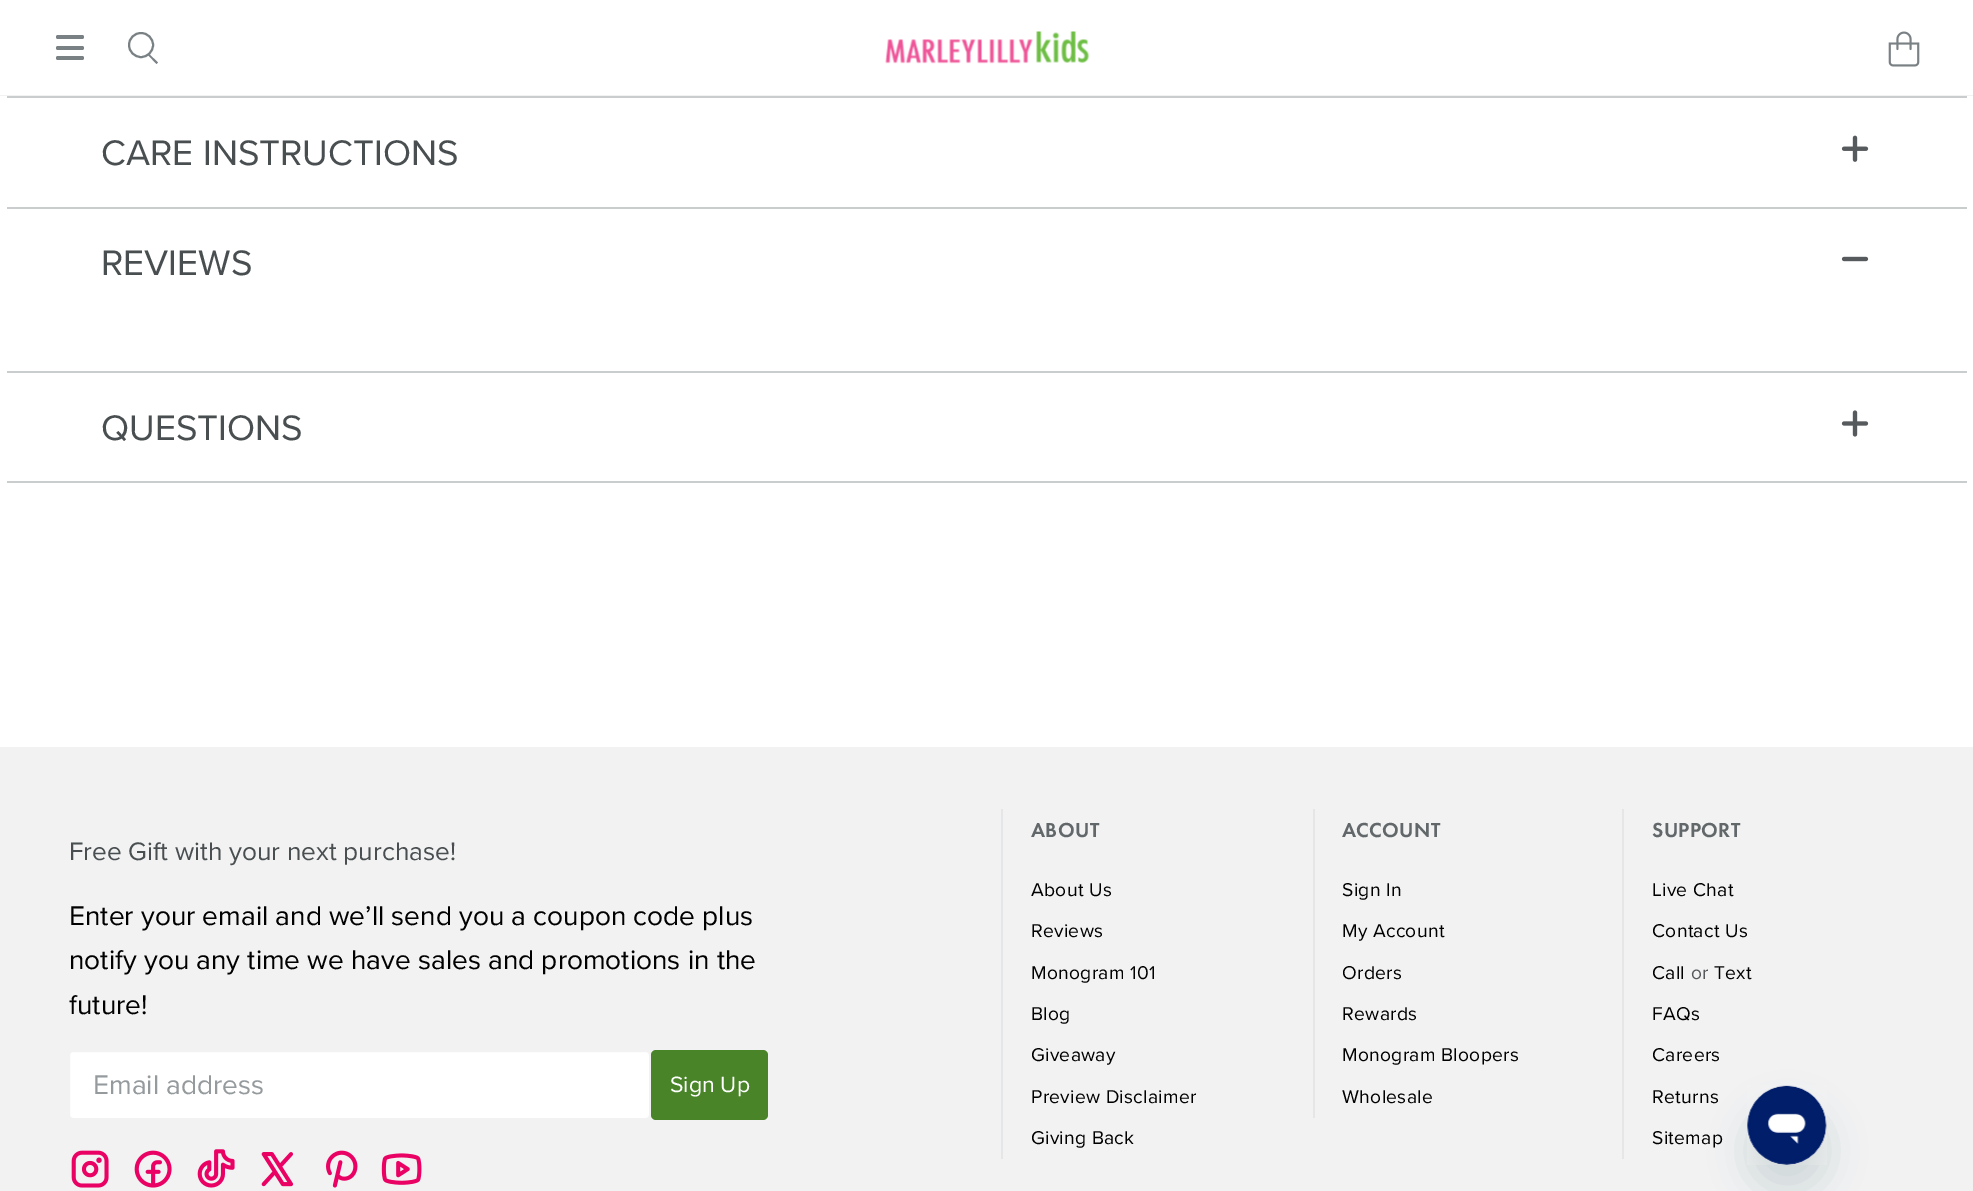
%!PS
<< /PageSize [1973 1191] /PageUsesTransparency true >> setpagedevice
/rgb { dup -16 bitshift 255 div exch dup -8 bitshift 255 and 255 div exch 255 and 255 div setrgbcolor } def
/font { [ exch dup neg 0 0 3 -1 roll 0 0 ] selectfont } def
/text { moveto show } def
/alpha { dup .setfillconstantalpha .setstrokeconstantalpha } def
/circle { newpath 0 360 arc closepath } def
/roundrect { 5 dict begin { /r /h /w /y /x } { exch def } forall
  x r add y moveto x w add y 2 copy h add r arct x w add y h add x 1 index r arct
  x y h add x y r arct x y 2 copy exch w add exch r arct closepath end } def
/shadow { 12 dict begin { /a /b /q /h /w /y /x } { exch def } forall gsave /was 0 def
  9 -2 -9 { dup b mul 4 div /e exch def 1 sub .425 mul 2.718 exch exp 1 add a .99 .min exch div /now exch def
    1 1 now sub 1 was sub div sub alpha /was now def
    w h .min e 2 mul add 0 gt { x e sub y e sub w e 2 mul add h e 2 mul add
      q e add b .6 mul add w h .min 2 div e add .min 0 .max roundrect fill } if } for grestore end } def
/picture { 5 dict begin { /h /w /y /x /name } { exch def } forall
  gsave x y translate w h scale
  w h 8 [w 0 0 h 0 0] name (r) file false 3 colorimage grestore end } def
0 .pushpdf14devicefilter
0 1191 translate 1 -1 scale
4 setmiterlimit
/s1 { /ProximaNova-Regular 36.75 font 16#494E50 rgb } def
/s2 { /ProximaNova-Regular 26.25 font 16#494E50 rgb } def
/s3 { /ProximaNova-Regular 28 font 16#000000 rgb } def
/s4 { /ProximaNova-Regular 28 font 16#959A9D rgb } def
/s5 { /ProximaNova-Regular 23 font 16#FFFFFF rgb } def
16#FFFFFF rgb
0 0 1973 1191 rectfill
16#F2F2F2 rgb
0 95 1973 1 rectfill
16#7A8185 rgb
56 35 28 4 2 roundrect fill
56 46 28 4 2 roundrect fill
56 56 28 4 2 roundrect fill
2 setlinewidth
141 45 12 circle stroke
149 54 moveto 158 62.5 lineto 156.5 64 lineto 148 55 lineto closepath fill
(pic1.raw) 885 31 205 33 picture
(pic2.raw) 1888 31 32 36 picture
16#CACDCE rgb
7 481 1960 2 rectfill
7 96 1960 2 rectfill
s1
(CARE INSTRUCTIONS) 101 165 text
(pic3.raw) 1841 135 28 27 picture
16#CACDCE rgb
7 207 1960 2 rectfill
s1
(REVIEWS) 101 275 text
(pic4.raw) 1841 256 28 6 picture
16#CACDCE rgb
7 371 1960 2 rectfill
s1
(QUESTIONS) 101 440 text
(pic5.raw) 1841 410 28 27 picture
16#F2F2F3 rgb
0 747 1973 444 rectfill
s2
(Free Gift with your next purchase!) 69 860 text
s3
(Enter your email and we’ll send you a coupon code plus) 69 925 text
(notify you any time we have sales and promotions in the) 69 969 text
(future!) 69 1014 text
16#FFFFFF rgb
69 1051 581 68 4 roundrect gsave fill grestore
16#F2F2F3 rgb
stroke
s4
(Email address) 93 1094 text
16#498429 rgb
651 1050 117 70 5 roundrect fill
s5
(Sign Up) 670 1092 text
(pic6.raw) 71 1150 38 38 picture
(pic7.raw) 134 1150 38 38 picture
(pic8.raw) 197 1149 38 39 picture
(pic9.raw) 261 1152 33 35 picture
(pic10.raw) 326 1150 32 38 picture
(pic11.raw) 381 1153 41 32 picture
16#E4E6E7 rgb
1001 809 2 350 rectfill
/FuturaPT-Medium 21 font
16#62676A rgb
1031 837 moveto 0.3 0 (ABOUT) ashow
/ProximaNova-Regular 19.25 font
16#000000 rgb
1031 896 moveto 0.3 0 (About Us) ashow
1031 937 moveto 0.3 0 (Reviews) ashow
1031 979 moveto 0.3 0 (Monogram 101) ashow
1031 1020 moveto 0.3 0 (Blog) ashow
1031 1061 moveto 0.3 0 (Giveaway) ashow
1031 1103 moveto 0.3 0 (Preview Disclaimer) ashow
1031 1144 moveto 0.3 0 (Giving Back) ashow
16#E4E6E7 rgb
1313 809 2 309 rectfill
/FuturaPT-Medium 21 font
16#62676A rgb
1342 837 moveto 0.3 0 (ACCOUNT) ashow
/ProximaNova-Regular 19.25 font
16#000000 rgb
1342 896 moveto 0.3 0 (Sign In) ashow
1342 937 moveto 0.3 0 (My Account) ashow
1342 979 moveto 0.3 0 (Orders) ashow
1342 1020 moveto 0.3 0 (Rewards) ashow
1342 1061 moveto 0.3 0 (Monogram Bloopers) ashow
1342 1103 moveto 0.3 0 (Wholesale) ashow
16#E4E6E7 rgb
1622 809 2 350 rectfill
/FuturaPT-Medium 21 font
16#62676A rgb
1652 837 moveto 0.3 0 (SUPPORT) ashow
/ProximaNova-Regular 19.25 font
16#000000 rgb
1652 896 moveto 0.3 0 (Live Chat) ashow
1652 937 moveto 0.3 0 (Contact Us) ashow
1652 979 moveto 0.3 0 (Call) ashow
16#565A5D rgb
1691 979 moveto 0.3 0 (or) ashow
16#000000 rgb
1714 979 moveto 0.3 0 (Text) ashow
1652 1020 moveto 0.3 0 (FAQs) ashow
1652 1061 moveto 0.3 0 (Careers) ashow
1652 1103 moveto 0.3 0 (Returns) ashow
1652 1144 moveto 0.3 0 (Sitemap) ashow
16#17494D rgb
1748 1111 79 79 39.5 18.5 0.15 shadow
(pic12.raw) 1747 1085 80 80 picture
.poppdf14devicefilter showpage
